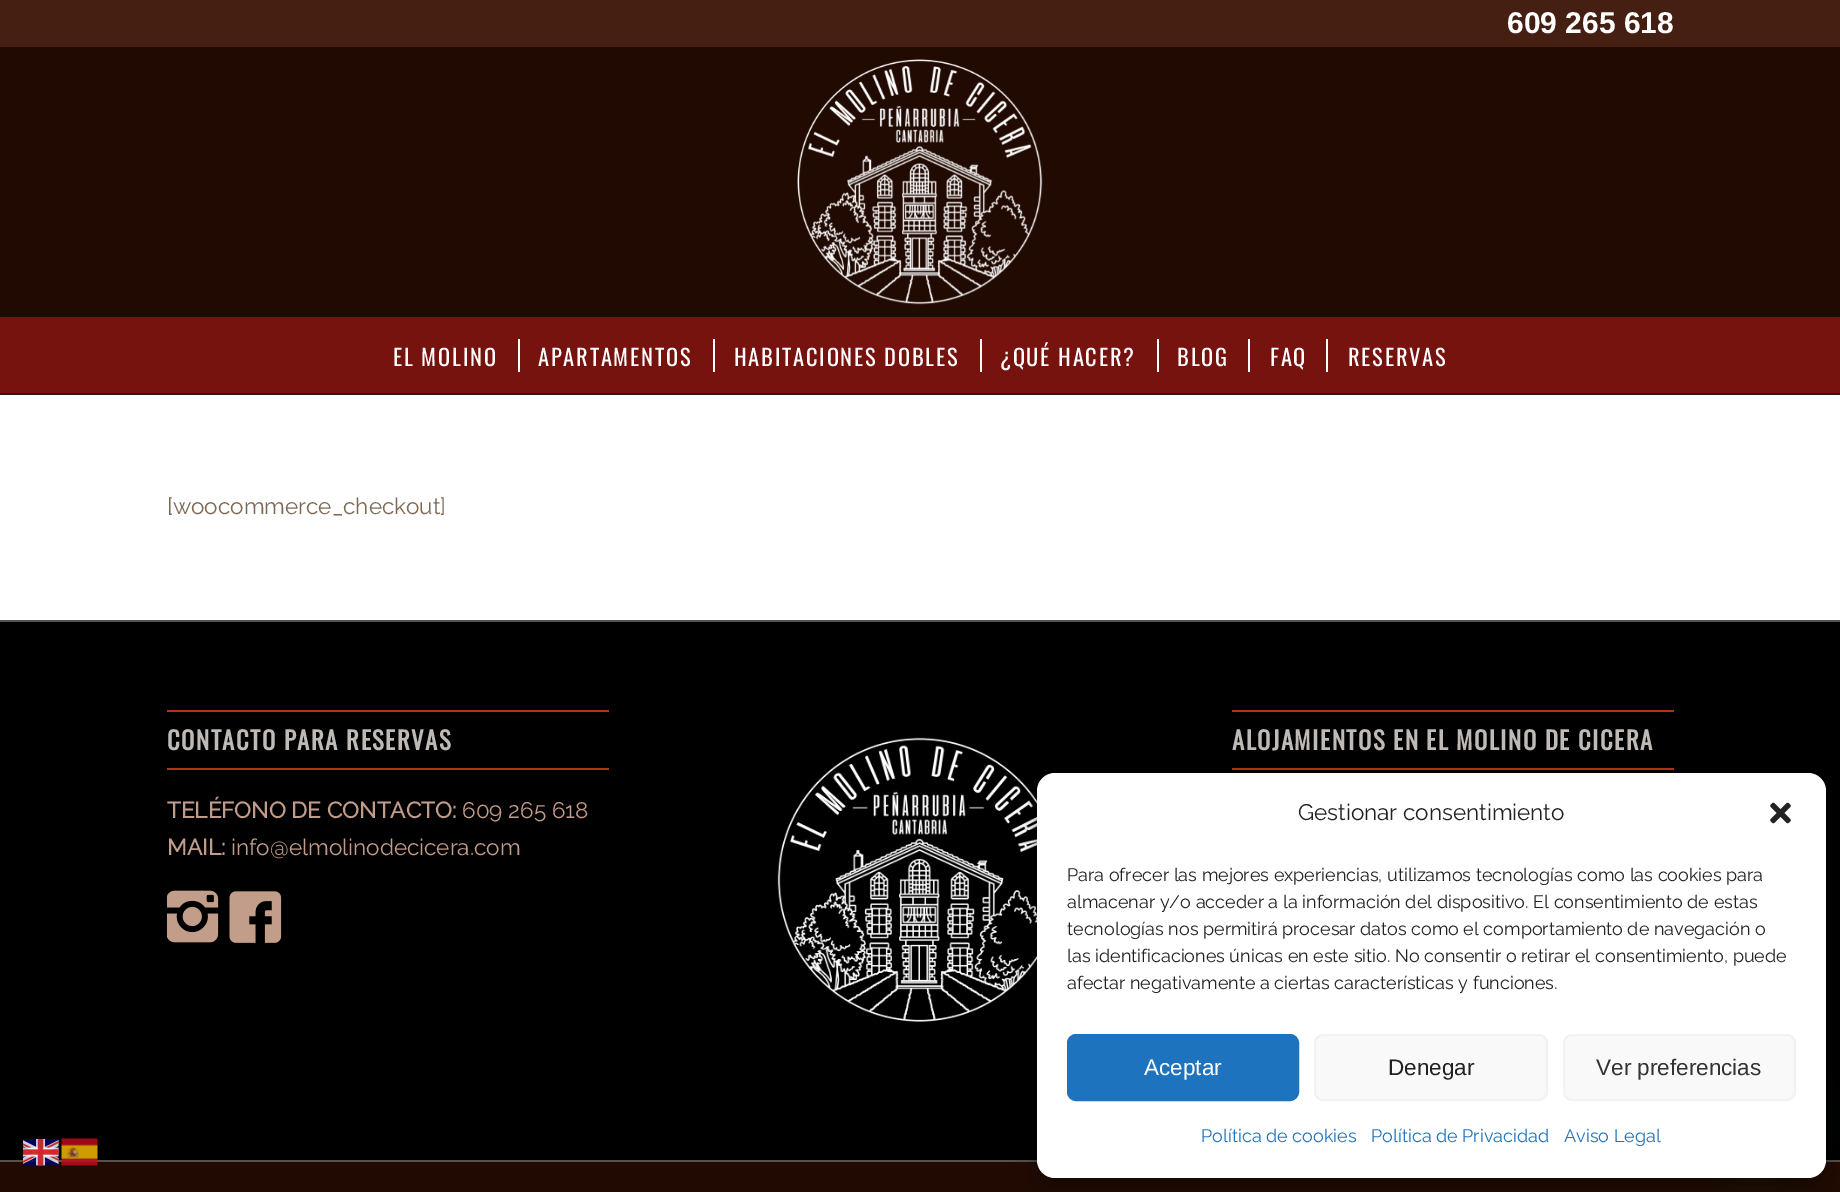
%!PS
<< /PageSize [1840 1192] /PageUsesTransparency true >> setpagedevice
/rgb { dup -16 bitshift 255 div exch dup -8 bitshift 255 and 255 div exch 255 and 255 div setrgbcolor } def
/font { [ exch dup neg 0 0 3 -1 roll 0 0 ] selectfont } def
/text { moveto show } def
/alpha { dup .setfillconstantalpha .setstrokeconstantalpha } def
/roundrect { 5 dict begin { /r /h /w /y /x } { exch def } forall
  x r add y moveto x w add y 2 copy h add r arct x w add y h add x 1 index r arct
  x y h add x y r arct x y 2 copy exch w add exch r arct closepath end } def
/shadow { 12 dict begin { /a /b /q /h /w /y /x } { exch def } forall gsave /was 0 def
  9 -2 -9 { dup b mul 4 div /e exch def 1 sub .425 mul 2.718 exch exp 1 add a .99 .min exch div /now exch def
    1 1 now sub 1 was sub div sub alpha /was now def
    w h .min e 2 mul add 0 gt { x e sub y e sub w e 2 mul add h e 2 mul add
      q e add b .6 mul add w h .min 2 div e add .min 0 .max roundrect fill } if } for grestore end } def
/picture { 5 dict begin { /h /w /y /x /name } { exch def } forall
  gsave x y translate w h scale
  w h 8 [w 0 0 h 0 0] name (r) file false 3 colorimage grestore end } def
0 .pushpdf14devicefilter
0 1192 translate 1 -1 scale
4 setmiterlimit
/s1 { /LiberationSans-Bold 30 font 16#FFFFFF rgb } def
/s2 { /Raleway-Thin 22.5 font 16#7C6853 rgb } def
/s3 { /Raleway-Bold 22.5 font 16#C29C8A rgb } def
/s4 { /Raleway-Thin 22.5 font 16#C29C8A rgb } def
/s5 { /Raleway-Thin 22.5 font 16#222222 rgb } def
/s6 { /Raleway-Thin 18 font 16#222222 rgb } def
/s7 { /LiberationSans-Regular 22.5 font 16#FFFFFF rgb } def
/s8 { /LiberationSans-Regular 22.5 font 16#222222 rgb } def
/s9 { /LiberationSans-Regular 22.5 font 16#333333 rgb } def
/s10 { /Raleway-Thin 18 font 16#1E73BE rgb } def
16#210A02 rgb
0 0 1840 1192 rectfill
16#451F12 rgb
0 0 1840 47 rectfill
s1
(609 265 618) 1507 33 text
(pic1.raw) 797 59 246 246 picture
16#77130E rgb
0 317 1840 76 rectfill
/Oswald-Regular 22.5 font
16#FFFFFF rgb
393 366 moveto 1.75 0 (EL MOLINO) ashow
538 366 moveto 1.75 0 (APARTAMENTOS) ashow
518 339 2 33 rectfill
734 366 moveto 1.75 0 (HABITACIONES DOBLES) ashow
713 339 2 33 rectfill
1000 366 moveto 1.75 0 (¿QUÉ HACER?) ashow
980 339 2 33 rectfill
1177 366 moveto 1.75 0 (BLOG) ashow
1157 339 2 33 rectfill
1270 366 moveto 1.75 0 (FAQ) ashow
1248 339 2 33 rectfill
1348 366 moveto 1.75 0 (RESERVAS) ashow
1326 339 2 33 rectfill
0 395 1840 225 rectfill
16#2B150D rgb
0 393 1840 2 rectfill
s2
([woocommerce_checkout]) 167 514 text
16#000000 rgb
0 622 1840 538 rectfill
16#575149 rgb
0 620 1840 2 rectfill
16#AD3311 rgb
167 710 442 2 rectfill
167 768 442 2 rectfill
/Oswald-Bold 24.75 font
16#BFBAB5 rgb
167 750 moveto 1.5 0 (CONTACTO PARA RESERVAS) ashow
s3
(TELÉFONO DE CONTACTO:) 167 818 text
s4
(609 265 618) 462 818 text
s3
(MAIL:) 167 855 text
s4
(info@elmolinodecicera.com) 231 855 text
(pic2.raw) 167 890 52 53 picture
(pic3.raw) 229 891 53 52 picture
(pic4.raw) 777 737 260 285 picture
16#AD3311 rgb
1232 710 442 2 rectfill
1232 768 442 2 rectfill
/Oswald-Bold 24.75 font
16#BFBAB5 rgb
1232 750 moveto 1.5 0 (ALOJAMIENTOS EN EL MOLINO DE CICERA) ashow
16#575149 rgb
0 1160 1840 2 rectfill
16#000000 rgb
1037 782 789 405 18 4.5 0.23 shadow
1037 788 789 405 18 15 0.19 shadow
16#075E54 rgb
1710 1070 90 90 45 18 0.24 shadow
16#FFFFFF rgb
1037 773 789 405 18 roundrect fill
s5
(Gestionar consentimiento) 1298 820 text
(pic5.raw) 1770 802 21 22 picture
s6
(Para ofrecer las mejores experiencias, utilizamos tecnologías como las cookies para) 1067 881 text
(almacenar y/o acceder a la información del dispositivo. El consentimiento de estas) 1067 908 text
(tecnologías nos permitirá procesar datos como el comportamiento de navegación o) 1067 935 text
(las identificaciones únicas en este sitio. No consentir o retirar el consentimiento, puede) 1067 962 text
(afectar negativamente a ciertas características y funciones.) 1067 989 text
16#1E73BE rgb
1068 1035 230 65 8 roundrect gsave fill grestore
2 setlinewidth
stroke
s7
(Aceptar) 1144 1075 text
16#F9F9F9 rgb
1315 1035 232 65 8 roundrect gsave fill grestore
16#F2F2F2 rgb
stroke
s8
(Denegar) 1388 1075 text
16#F9F9F9 rgb
1564 1035 231 65 8 roundrect gsave fill grestore
16#F2F2F2 rgb
stroke
s9
(Ver preferencias) 1596 1075 text
s10
(Política de cookies) 1201 1142 text
(Política de Privacidad) 1371 1142 text
(Aviso Legal) 1564 1142 text
(pic6.raw) 23 1139 36 27 picture
(pic7.raw) 61 1138 37 28 picture
.poppdf14devicefilter showpage
